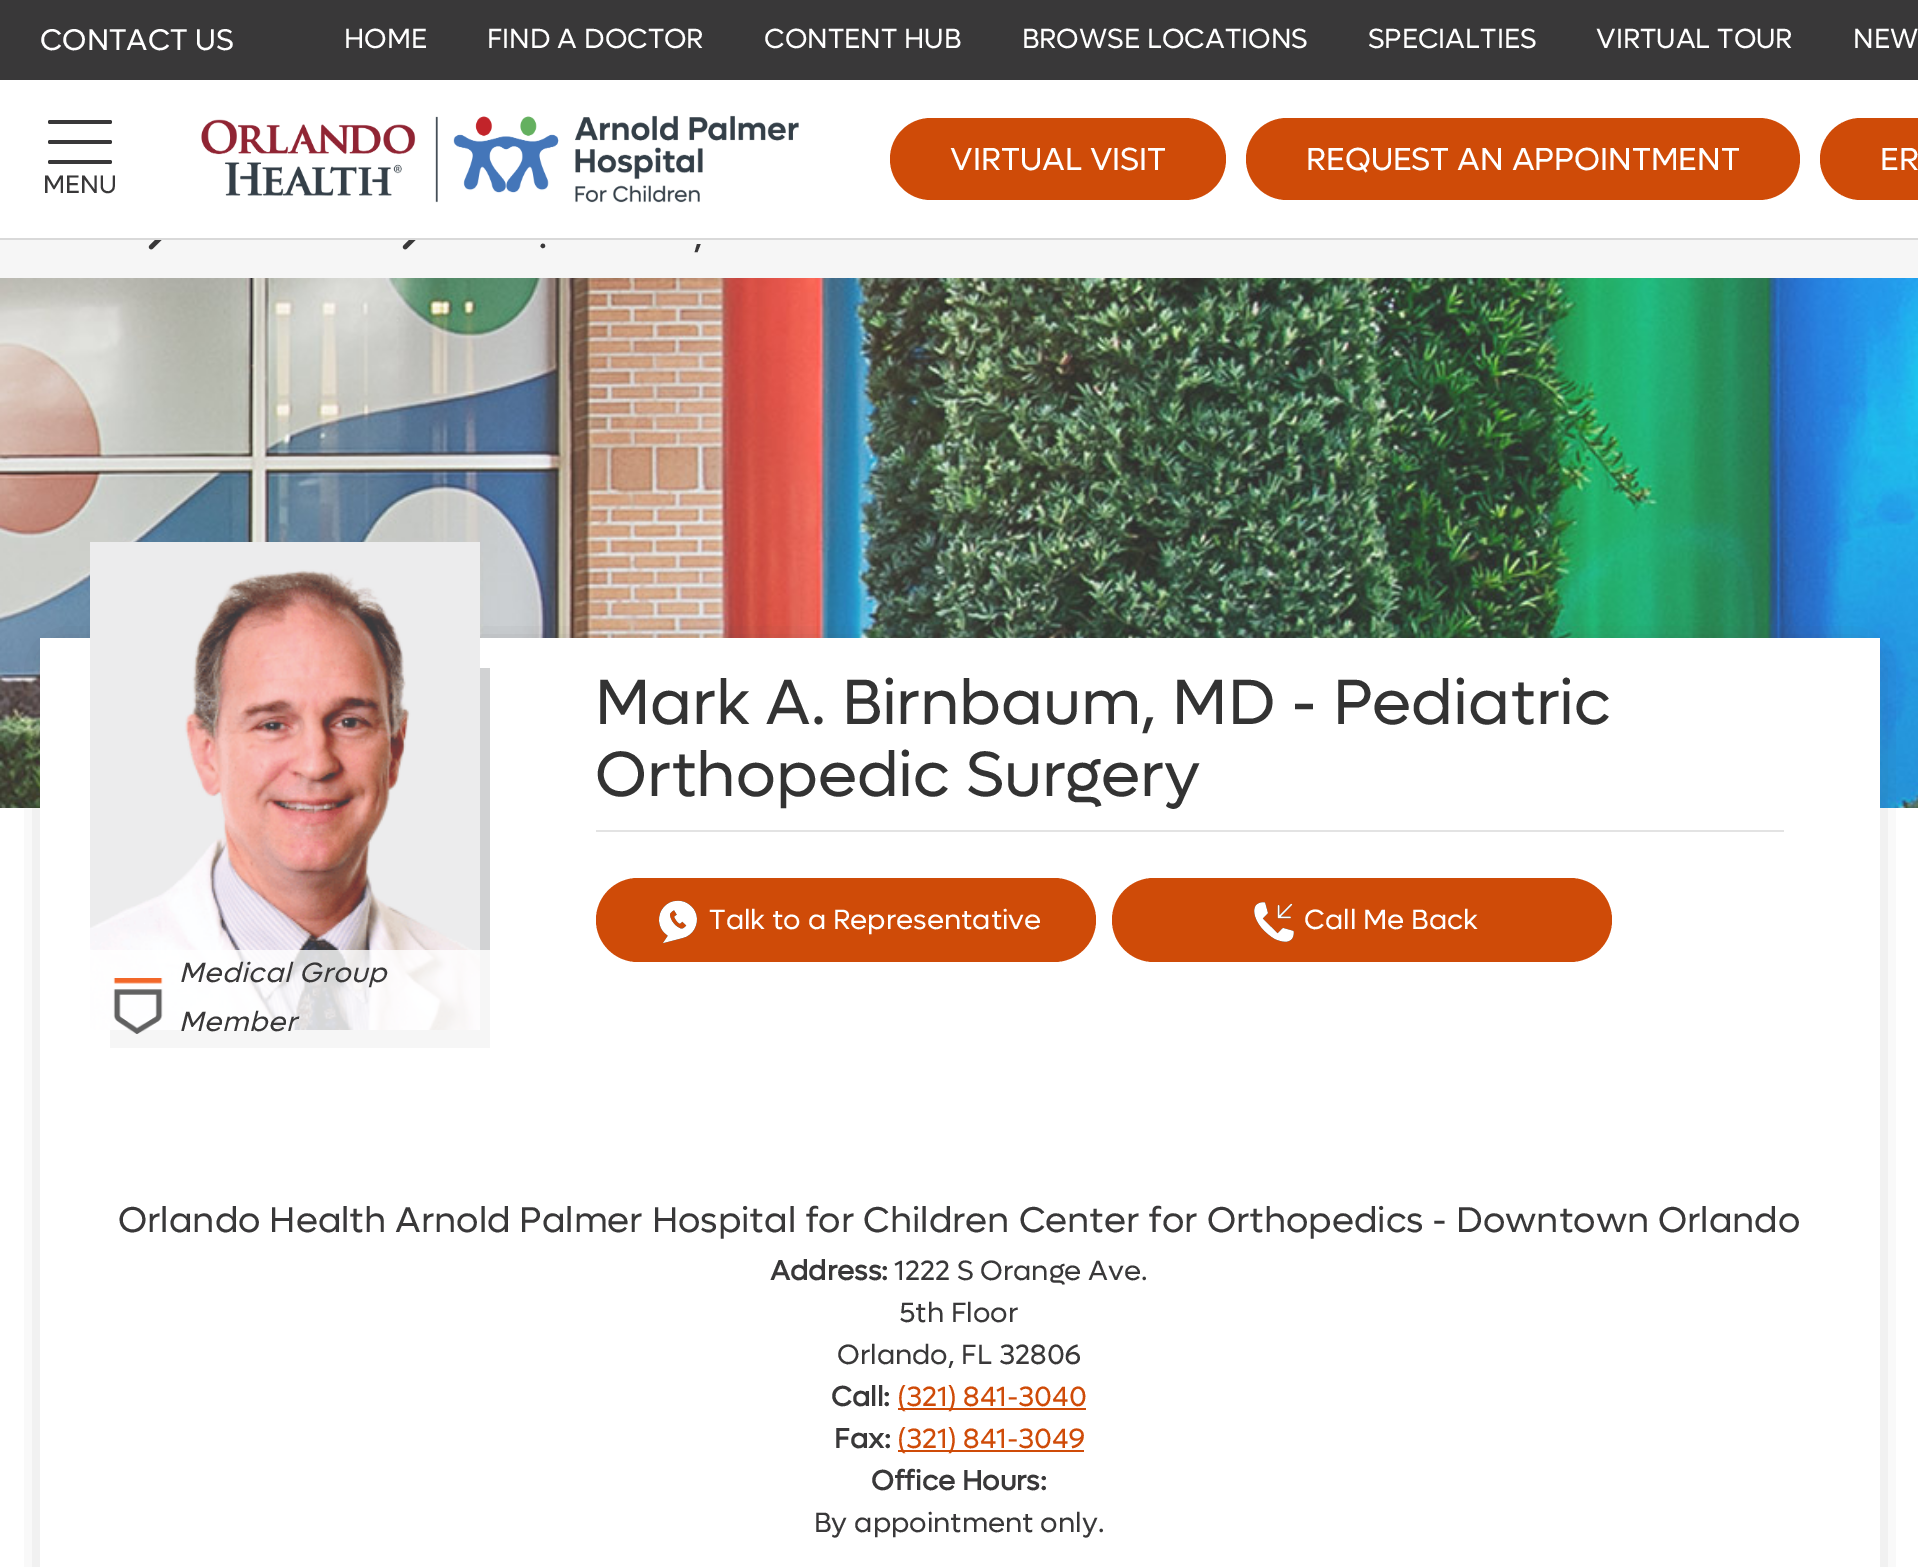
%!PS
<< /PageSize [1918 1567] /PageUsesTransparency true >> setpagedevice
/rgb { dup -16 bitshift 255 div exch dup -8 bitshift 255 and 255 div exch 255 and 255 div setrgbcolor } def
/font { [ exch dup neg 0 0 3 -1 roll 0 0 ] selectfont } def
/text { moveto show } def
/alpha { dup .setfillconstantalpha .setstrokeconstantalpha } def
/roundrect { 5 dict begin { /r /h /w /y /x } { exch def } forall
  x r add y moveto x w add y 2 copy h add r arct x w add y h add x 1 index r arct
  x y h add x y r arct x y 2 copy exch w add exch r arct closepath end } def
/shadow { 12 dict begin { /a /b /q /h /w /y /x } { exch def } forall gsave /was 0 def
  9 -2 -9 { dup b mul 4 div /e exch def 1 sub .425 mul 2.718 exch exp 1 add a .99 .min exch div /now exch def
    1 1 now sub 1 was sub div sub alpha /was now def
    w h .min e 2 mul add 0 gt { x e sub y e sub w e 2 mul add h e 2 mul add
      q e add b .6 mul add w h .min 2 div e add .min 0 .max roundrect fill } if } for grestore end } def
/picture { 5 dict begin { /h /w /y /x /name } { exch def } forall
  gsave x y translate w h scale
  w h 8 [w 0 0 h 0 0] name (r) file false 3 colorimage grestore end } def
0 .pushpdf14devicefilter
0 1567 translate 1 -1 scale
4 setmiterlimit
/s1 { /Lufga-Regular 30 font 16#FFFFFF rgb } def
/s2 { /Lufga-Regular 27.75 font 16#FFFFFF rgb } def
/s3 { /Lufga-Regular 32 font 16#FFFFFF rgb } def
/s4 { /Lufga-Regular 25.5 font 16#393839 rgb } def
/s5 { /Lufga-Bold 30 font 16#393839 rgb } def
/s6 { /Lufga-Regular 64 font 16#333333 rgb } def
/s7 { /Lufga-Regular 28 font 16#FFFFFF rgb } def
/s8 { /Lufga-Regular 36 font 16#393839 rgb } def
/s9 { /Lufga-Bold 28 font 16#393839 rgb } def
/s10 { /Lufga-Regular 28 font 16#393839 rgb } def
/s11 { /Lufga-Regular 28 font 16#CF4B08 rgb } def
16#FFFFFF rgb
0 0 1918 1567 rectfill
16#393839 rgb
0 0 1918 80 rectfill
s1
(CONTACT US) 40 50 text
s2
(HOME) 344 48 text
(FIND A DOCTOR) 487 48 text
(CONTENT HUB) 764 48 text
(BROWSE LOCATIONS) 1022 48 text
(SPECIALTIES) 1368 48 text
(VIRTUAL TOUR) 1596 48 text
(NEW) 1853 48 text
16#D9D9D9 rgb
0 238 1918 2 rectfill
(pic1.raw) 201 115 598 88 picture
16#CF4B08 rgb
890 118 336 82 41 roundrect fill
s3
(VIRTUAL VISIT) 950 170 text
16#CF4B08 rgb
1246 118 554 82 41 roundrect fill
s3
(REQUEST AN APPOINTMENT) 1306 170 text
16#CF4B08 rgb
1861 118 moveto 1918 118 lineto 1918 200 lineto 1861 200 lineto 1838.5 200 1820 181.5 1820 159 curveto 1820 136.5 1838.5 118 1861 118 curveto closepath fill
s3
(ER) 1880 170 text
16#393839 rgb
48 140 64 4 2 roundrect fill
48 120 64 4 2 roundrect fill
48 160 64 4 2 roundrect fill
s4
(MENU) 43 193 text
16#F6F6F6 rgb
0 240 1918 38 rectfill
(pic2.raw) 148 240 14 10 picture
(pic2.raw) 402 240 14 10 picture
s5
(.) 539 248 text
(,) 694 248 text
(pic3.raw) 0 278 1918 530 picture
60 662 1800 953 0 16 1 shadow
16#FFFFFF rgb
40 638 1840 929 rectfill
16#E3E3E3 rgb
596 830 1188 2 rectfill
s6
(Mark A. Birnbaum, MD - Pediatric) 595 724 text
(Orthopedic Surgery) 595 796 text
16#CF4B08 rgb
596 878 500 84 42 roundrect fill
(pic4.raw) 659 900 38 44 picture
s7
(Talk to a Representative) 709 929 text
16#CF4B08 rgb
1112 878 500 84 42 roundrect fill
(pic5.raw) 1254 902 40 40 picture
s7
(Call Me Back) 1304 929 text
(pic6.raw) 110 668 380 380 picture
(pic7.raw) 90 542 390 488 picture
0.8 alpha
90 950 400 98 rectfill
/Lufga-Italic 28 font
1 alpha
16#393839 rgb
179 982 moveto 0.75 0 (Medical Group) ashow
(pic8.raw) 113 978 50 56 picture
179 1031 moveto 0.75 0 (Member) ashow
s8
(Orlando Health Arnold Palmer Hospital for Children Center for Orthopedics - Downtown Orlando) 118 1232 text
s9
(Address:) 770 1280 text
s10
(1222 S Orange Ave.) 894 1280 text
(5th Floor) 899 1322 text
(Orlando, FL 32806) 837 1364 text
s9
(Call:) 831 1406 text
16#CF4B08 rgb
898 1408 188 2 rectfill
s11
(\(321\) 841-3040) 897 1406 text
s9
(Fax:) 834 1448 text
16#CF4B08 rgb
898 1450 186 2 rectfill
s11
(\(321\) 841-3049) 897 1448 text
s9
(Office Hours:) 871 1490 text
s10
(By appointment only.) 814 1532 text
.poppdf14devicefilter showpage
